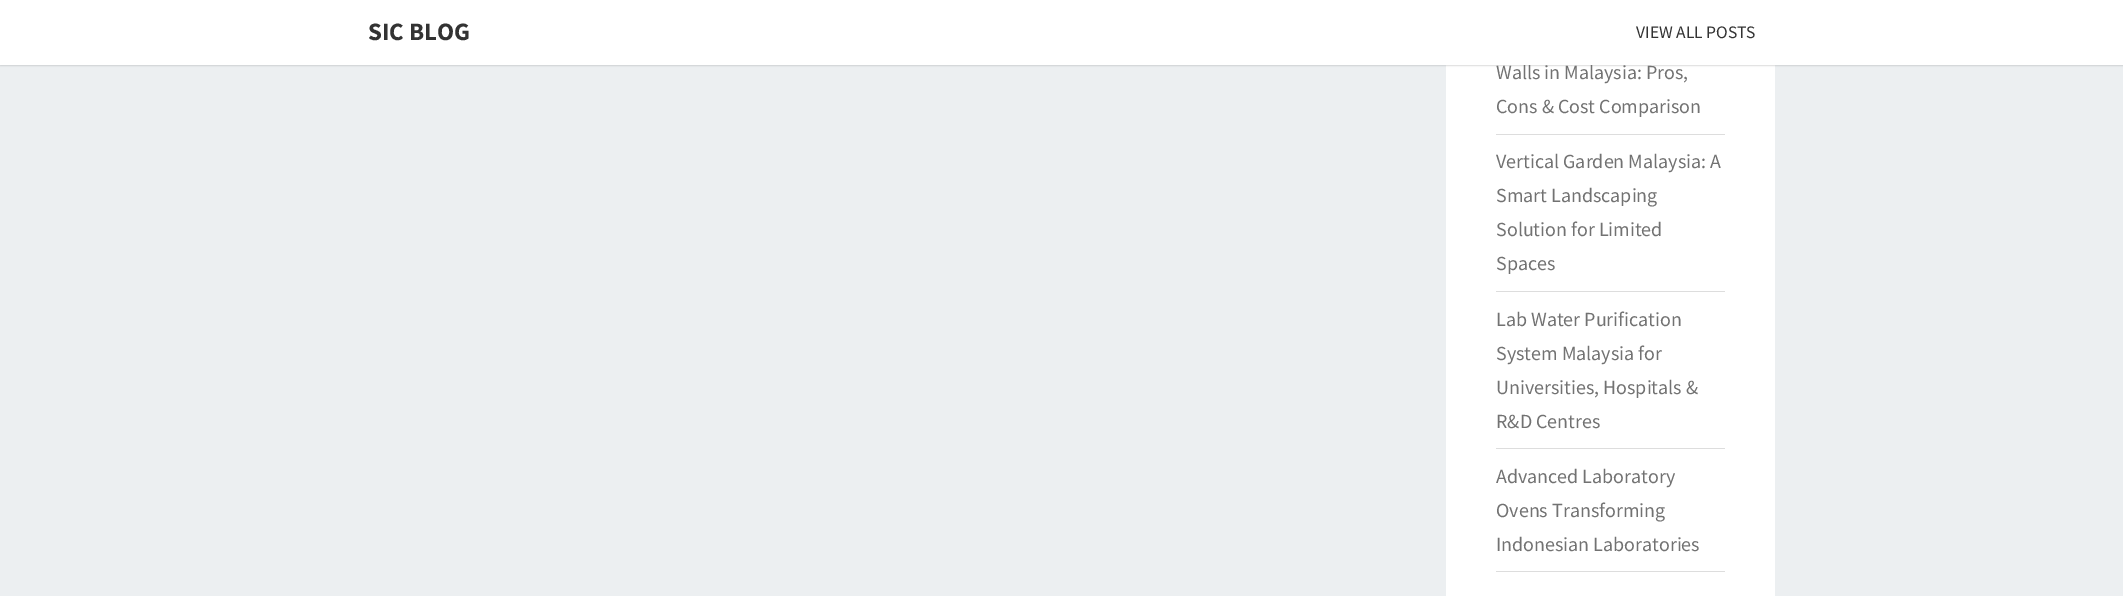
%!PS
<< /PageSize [2123 596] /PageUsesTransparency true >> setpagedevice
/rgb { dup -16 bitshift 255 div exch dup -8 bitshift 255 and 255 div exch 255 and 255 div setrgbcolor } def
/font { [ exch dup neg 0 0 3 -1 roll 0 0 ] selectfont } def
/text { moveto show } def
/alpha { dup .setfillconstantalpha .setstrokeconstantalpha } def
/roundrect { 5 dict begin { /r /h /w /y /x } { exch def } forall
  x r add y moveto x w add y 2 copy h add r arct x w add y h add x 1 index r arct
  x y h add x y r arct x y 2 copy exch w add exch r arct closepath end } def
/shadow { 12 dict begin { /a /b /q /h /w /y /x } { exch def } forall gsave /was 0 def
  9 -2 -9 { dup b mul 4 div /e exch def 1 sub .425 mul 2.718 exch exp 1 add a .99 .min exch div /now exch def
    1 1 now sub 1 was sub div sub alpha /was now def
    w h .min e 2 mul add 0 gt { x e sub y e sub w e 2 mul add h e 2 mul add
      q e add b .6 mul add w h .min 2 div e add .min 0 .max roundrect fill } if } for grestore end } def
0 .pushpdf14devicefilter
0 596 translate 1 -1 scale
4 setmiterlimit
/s1 { /SourceSansPro-Regular 20 font 16#727272 rgb } def
/s2 { /SourceSansPro-Bold 25 font 16#333333 rgb } def
/s3 { /SourceSansPro-Regular 17.5 font 16#333333 rgb } def
16#ECEFF1 rgb
0 0 2123 596 rectfill
16#FFFFFF rgb
1446 65 329 531 rectfill
16#646464 rgb
0 1 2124 65 0 0.5 0.2 shadow
s1
(Walls in Malaysia: Pros,) 1496 79 text
16#FFFFFF rgb
0 0 2123 65 rectfill
s2
(SIC BLOG) 368 40 text
s3
(VIEW ALL POSTS) 1636 38 text
16#DDDDDD rgb
1496 134 229 1 rectfill
s1
(Cons & Cost Comparison) 1496 113 text
16#DDDDDD rgb
1496 291 229 1 rectfill
s1
(Vertical Garden Malaysia: A) 1496 168 text
(Smart Landscaping) 1496 202 text
(Solution for Limited) 1496 236 text
(Spaces) 1496 270 text
16#DDDDDD rgb
1496 448 229 1 rectfill
s1
(Lab Water Purification) 1496 326 text
(System Malaysia for) 1496 360 text
(Universities, Hospitals &) 1496 394 text
(R&D Centres) 1496 428 text
16#DDDDDD rgb
1496 571 229 1 rectfill
s1
(Advanced Laboratory) 1496 483 text
(Ovens Transforming) 1496 517 text
(Indonesian Laboratories) 1496 551 text
.poppdf14devicefilter showpage
